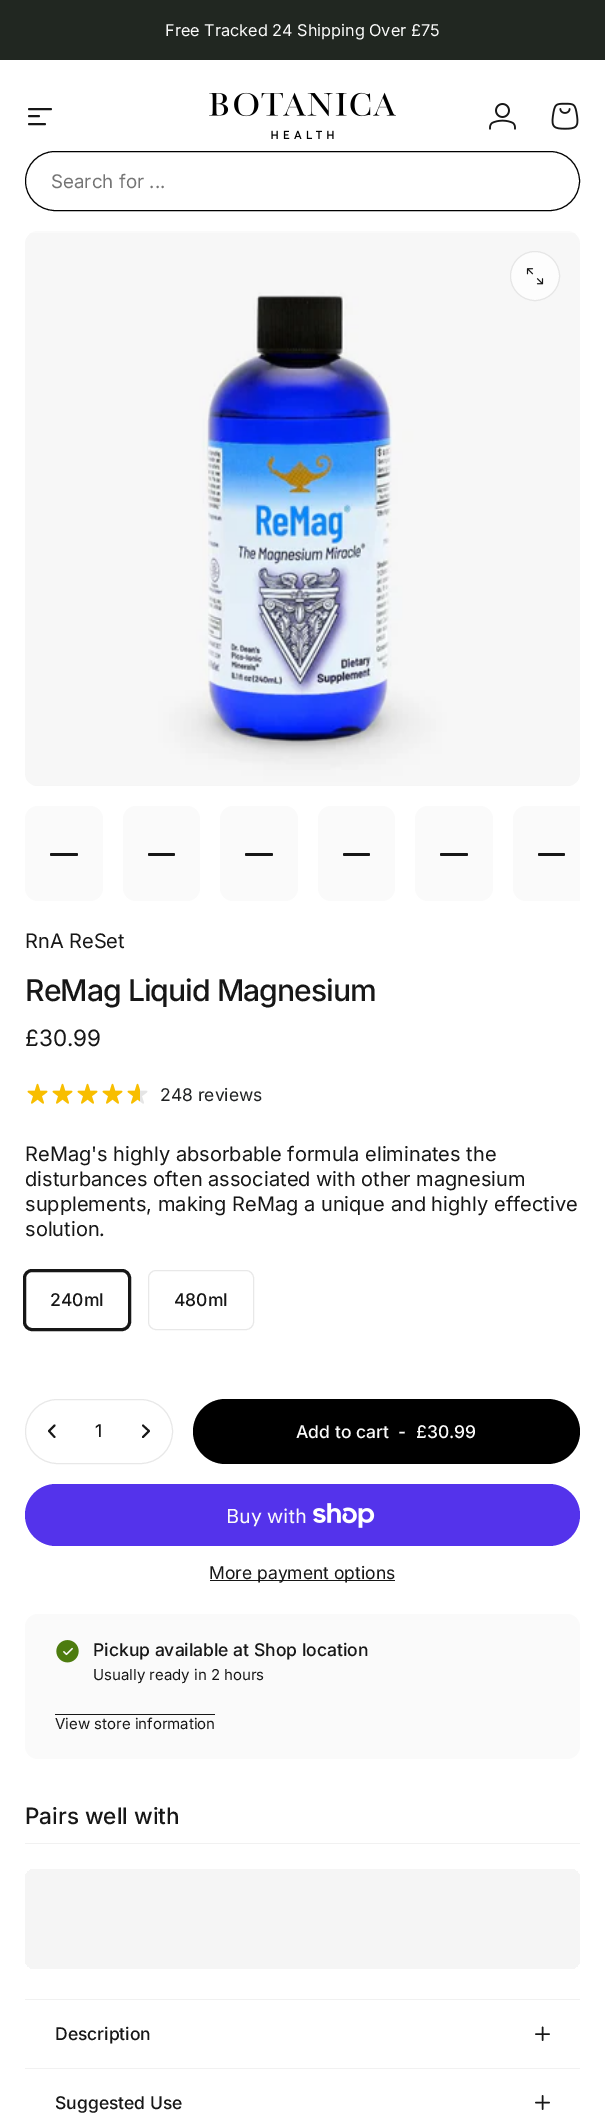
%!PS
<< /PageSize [605 2126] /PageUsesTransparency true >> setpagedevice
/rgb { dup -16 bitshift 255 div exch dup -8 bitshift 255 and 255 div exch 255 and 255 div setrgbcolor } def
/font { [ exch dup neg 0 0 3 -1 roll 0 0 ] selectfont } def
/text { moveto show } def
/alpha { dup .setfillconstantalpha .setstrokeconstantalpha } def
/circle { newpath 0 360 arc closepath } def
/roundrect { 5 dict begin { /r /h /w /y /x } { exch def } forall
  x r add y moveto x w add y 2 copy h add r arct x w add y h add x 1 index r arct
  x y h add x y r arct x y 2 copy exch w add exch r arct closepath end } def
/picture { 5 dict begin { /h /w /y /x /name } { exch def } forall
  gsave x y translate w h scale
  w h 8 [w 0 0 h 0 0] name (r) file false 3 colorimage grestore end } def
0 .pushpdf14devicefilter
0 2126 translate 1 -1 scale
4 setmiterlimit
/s1 { /Inter-Regular 16.25 font 16#FAFAFA rgb } def
/s2 { /Inter-Regular 18.75 font 16#757575 rgb } def
/s3 { /Inter-Regular 20 font 16#171717 rgb } def
/s4 { /Inter-Regular 22.5 font 16#171717 rgb } def
/s5 { /Inter-Regular 17.5 font 16#202223 rgb } def
/s6 { /Inter-Medium 17.5 font 16#171717 rgb } def
/s7 { /Inter-Medium 17.5 font 16#FAFAFA rgb } def
/s8 { /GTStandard-Regular 20 font 16#FAFAFA rgb } def
/s9 { /Inter-Regular 17.5 font 16#171717 rgb } def
/s10 { /Inter-Regular 15 font 16#171717 rgb } def
/s11 { /Inter-Medium 22.5 font 16#171717 rgb } def
16#FFFFFF rgb
0 0 605 2126 rectfill
16#212721 rgb
0 0 605 60 rectfill
s1
(Free Tracked 24 Shipping Over £75) 165 36 text
16#171717 rgb
1.9 setlinewidth
1 setlinecap
29 109 moveto 51 109 lineto 29 116 moveto 39 116 lineto 29 124 moveto 45 124 lineto stroke
(pic1.raw) 209 92 187 47 picture
(pic2.raw) 489 103 27 27 picture
(pic3.raw) 551 102 28 28 picture
16#000000 rgb
1 setlinewidth
0 setlinecap
25.5 151.5 554 59 29.5 roundrect stroke
s2
(Search for ...) 51 188 text
16#FAFAFA rgb
25 231 555 555 13 roundrect fill
(pic4.raw) 25 233 555 553 picture
16#FDFDFD rgb
535 276 25 circle fill
0.1 alpha
16#171717 rgb
535 276 24.5 circle stroke
1 alpha
(pic5.raw) 526 268 18 17 picture
16#FAFAFA rgb
25 806 78 95 13 roundrect fill
16#FFFFFF rgb
50 853 28 3 rectfill
16#171717 rgb
50 853 28 3 1.5 roundrect fill
16#FAFAFA rgb
123 806 77 95 13 roundrect fill
16#FFFFFF rgb
148 853 27 3 rectfill
16#171717 rgb
148 853 27 3 1.5 roundrect fill
16#FAFAFA rgb
220 806 78 95 13 roundrect fill
16#FFFFFF rgb
245 853 28 3 rectfill
16#171717 rgb
245 853 28 3 1.5 roundrect fill
16#FAFAFA rgb
318 806 77 95 13 roundrect fill
16#FFFFFF rgb
343 853 27 3 rectfill
16#171717 rgb
343 853 27 3 1.5 roundrect fill
16#FAFAFA rgb
415 806 78 95 13 roundrect fill
16#FFFFFF rgb
440 853 28 3 rectfill
16#171717 rgb
440 853 28 3 1.5 roundrect fill
gsave
25 806 555 95 rectclip
16#FAFAFA rgb
513 806 77 95 13 roundrect fill
grestore
16#FFFFFF rgb
538 853 27 3 rectfill
16#171717 rgb
538 853 27 3 1.5 roundrect fill
s3
(RnA ReSet) 25 948 text
/Inter-Medium 30 font
25 1001 moveto -0.9 0 (ReMag Liquid Magnesium) ashow
s4
(£30.99) 25 1046 text
(pic6.raw) 27 1083 21 21 picture
(pic6.raw) 52 1083 21 21 picture
(pic6.raw) 77 1083 21 21 picture
(pic6.raw) 102 1083 21 21 picture
(pic7.raw) 127 1083 21 21 picture
s5
(248 reviews) 160 1101 text
s3
(ReMag's highly absorbable formula eliminates the) 25 1161 text
(disturbances often associated with other magnesium) 25 1186 text
(supplements, making ReMag a unique and highly effective) 25 1211 text
(solution.) 25 1236 text
3 setlinewidth
24.5 1270.5 105 59 7.5 roundrect stroke
s6
(240ml) 50 1306 text
16#E8E8E8 rgb
1 setlinewidth
148.5 1270.5 105 59 7.5 roundrect stroke
s6
(480ml) 174 1306 text
16#E8E8E8 rgb
25.5 1399.5 147 64 32 roundrect stroke
16#171717 rgb
1.9 setlinewidth
1 setlinecap
1 setlinejoin
54.5 1425.5 moveto 49 1431 lineto 54.5 1437 lineto stroke
(1) 95 1437 text
143 1425.5 moveto 149 1431 lineto 143 1437 lineto stroke
16#000000 rgb
193 1399 387 65 32.5 roundrect fill
s7
(Add to cart) 296 1438 text
(-) 398 1438 text
(£30.99) 416 1438 text
16#5433EB rgb
25 1484 555 62 31 roundrect fill
s8
(Buy with) 226 1523 text
(pic8.raw) 313 1503 62 25 picture
16#171717 rgb
210 1580 185 1 rectfill
s9
(More payment options) 209 1579 text
16#FAFAFA rgb
25 1614 555 145 13 roundrect fill
(pic9.raw) 56 1640 23 23 picture
s6
(Pickup available at Shop location) 93 1656 text
s10
(Usually ready in 2 hours) 93 1680 text
(View store information) 55 1729 text
55 1714 160 1 rectfill
16#F1F1F1 rgb
25 1843 555 1 rectfill
s11
(Pairs well with) 25 1824 text
gsave 25 1869 555 100 10 roundrect clip newpath
<< /ShadingType 2 /ColorSpace /DeviceRGB /Coords [50 1727 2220 2110] /Extend [true true] /Function << /FunctionType 3 /Domain [0 1] /Functions [<< /FunctionType 2 /Domain [0 1] /C0 [0.961 0.961 0.961] /C1 [0.961 0.961 0.961] /N 1 >> << /FunctionType 2 /Domain [0 1] /C0 [0.961 0.961 0.961] /C1 [0.898 0.898 0.898] /N 1 >> << /FunctionType 2 /Domain [0 1] /C0 [0.898 0.898 0.898] /C1 [0.961 0.961 0.961] /N 1 >> << /FunctionType 2 /Domain [0 1] /C0 [0.961 0.961 0.961] /C1 [0.961 0.961 0.961] /N 1 >>] /Bounds [0.4 0.63 0.79] /Encode [0 1 0 1 0 1 0 1] >> >> shfill grestore
16#F1F1F1 rgb
25 1999 555 1 rectfill
25 2068 555 1 rectfill
s6
(Description) 55 2040 text
1.6 setlinewidth
542.5 2027.5 moveto 542.5 2040 lineto 549 2034 moveto 536 2034 lineto stroke
(Suggested Use) 55 2109 text
542.5 2096 moveto 542.5 2109 lineto 549 2102.5 moveto 536 2102.5 lineto stroke
.poppdf14devicefilter showpage
